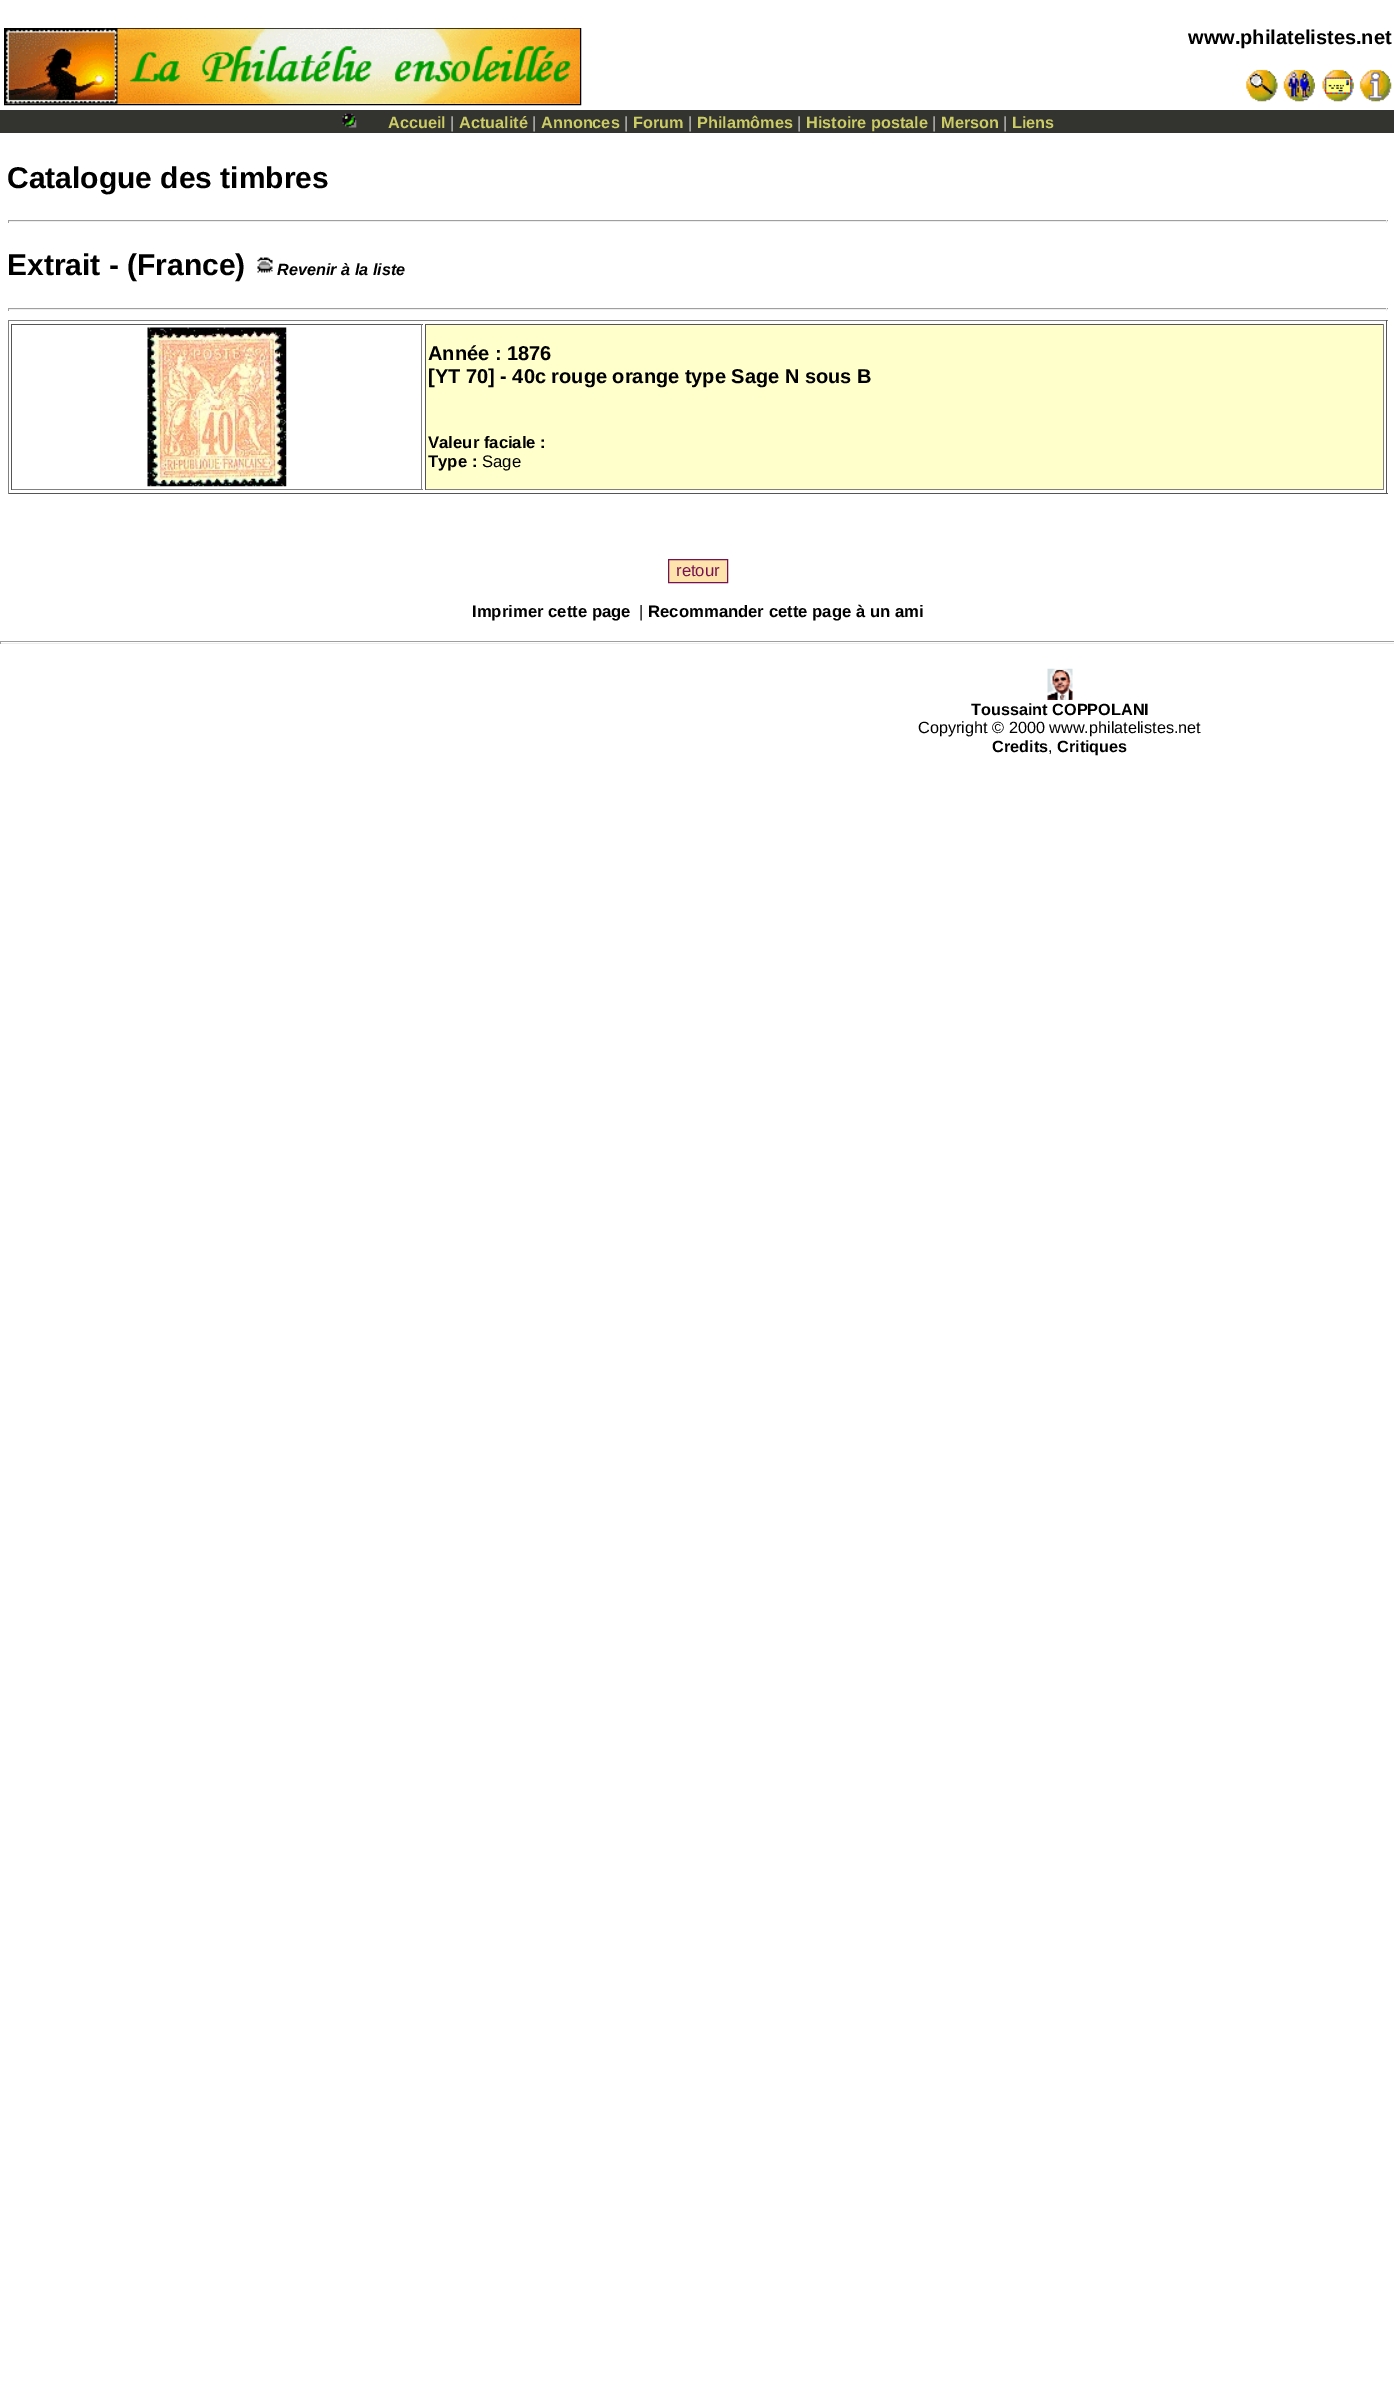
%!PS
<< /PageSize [1394 2383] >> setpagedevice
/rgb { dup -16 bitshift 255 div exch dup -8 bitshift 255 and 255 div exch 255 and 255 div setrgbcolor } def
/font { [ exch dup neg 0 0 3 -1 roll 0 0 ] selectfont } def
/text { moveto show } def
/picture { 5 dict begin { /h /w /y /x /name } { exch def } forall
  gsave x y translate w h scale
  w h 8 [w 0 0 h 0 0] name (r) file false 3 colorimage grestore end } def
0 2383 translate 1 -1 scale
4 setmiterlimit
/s1 { /LiberationSans-Bold 20 font 16#000000 rgb } def
/s2 { /LiberationSans-Bold 16.25 font 16#CCCC66 rgb } def
/s3 { /LiberationSans-Regular 16.25 font 16#CCCCCC rgb } def
/s4 { /LiberationSans-Bold 30 font 16#000000 rgb } def
/s5 { /LiberationSans-BoldItalic 16.25 font 16#000000 rgb } def
/s6 { /LiberationSans-Bold 16.7 font 16#000000 rgb } def
/s7 { /LiberationSans-Regular 16.7 font 16#000000 rgb } def
/s8 { /LiberationSans-Regular 16.7 font 16#781351 rgb } def
/s9 { /LiberationSans-Bold 16.25 font 16#000000 rgb } def
/s10 { /LiberationSans-Regular 16.25 font 16#000000 rgb } def
16#FFFFFF rgb
0 0 1394 2383 rectfill
16#000000 rgb
4.5 28.5 576 76 rectstroke
(pic1.raw) 5 28 575 76 picture
s1
(www.philatelistes.net) 1188 44 text
(pic2.raw) 1246 69 32 33 picture
(pic3.raw) 1283 69 32 33 picture
(pic4.raw) 1322 69 32 33 picture
(pic5.raw) 1359 69 33 33 picture
16#333330 rgb
0 110 1394 23 rectfill
(pic6.raw) 342 113 15 15 picture
s2
(Accueil) 388 128 text
s3
(|) 450 128 text
s2
(Actualité) 459 128 text
s3
(|) 532 128 text
s2
(Annonces) 541 128 text
s3
(|) 624 128 text
s2
(Forum) 633 128 text
s3
(|) 688 128 text
s2
(Philamômes) 697 128 text
s3
(|) 797 128 text
s2
(Histoire postale) 806 128 text
s3
(|) 932 128 text
s2
(Merson) 941 128 text
s3
(|) 1003 128 text
s2
(Liens) 1012 128 text
s4
(Catalogue des timbres) 7 188 text
16#9F9F9F rgb
8 220 1380 1 rectfill
16#EEEEEE rgb
1386 220 1 3 rectfill
8 221 1380 1 rectfill
16#9F9F9F rgb
8 220 1 3 rectfill
s4
(Extrait - \(France\)) 7 275 text
(pic7.raw) 257 257 16 16 picture
s5
(Revenir à la liste) 277 275 text
16#9F9F9F rgb
8 308 1380 1 rectfill
16#EEEEEE rgb
1386 308 1 3 rectfill
8 309 1380 1 rectfill
16#9F9F9F rgb
8 308 1 3 rectfill
16#808080 rgb
8 320 1380 1 rectfill
16#555555 rgb
1386 320 1 174 rectfill
8 493 1380 1 rectfill
16#808080 rgb
8 320 1 174 rectfill
16#555555 rgb
11 324 412 1 rectfill
16#808080 rgb
421 324 1 166 rectfill
11 489 412 1 rectfill
16#555555 rgb
11 324 1 166 rectfill
(pic8.raw) 147 327 140 160 picture
16#FFFFCC rgb
426 325 957 164 rectfill
16#555555 rgb
425 324 959 1 rectfill
16#808080 rgb
1383 324 1 166 rectfill
425 489 959 1 rectfill
16#555555 rgb
425 324 1 166 rectfill
s1
(Année : 1876) 428 360 text
([YT 70] - 40c rouge orange type Sage N sous B) 428 383 text
s6
(Valeur faciale :) 428 448 text
(Type :) 428 467 text
s7
(Sage) 482 467 text
16#FEE3AD rgb
668.5 559.5 moveto 727.5 559.5 lineto 727.5 582.5 lineto 668.5 582.5 lineto closepath gsave fill grestore
16#781351 rgb
stroke
(retour) 676 576 text
s6
(Imprimer cette page) 472 617 text
s7
(|) 639 617 text
s6
(Recommander cette page à un ami) 648 617 text
16#9F9F9F rgb
0 641 1394 1 rectfill
16#EEEEEE rgb
0 643 1394 1 rectfill
16#9F9F9F rgb
0 641 1 3 rectfill
(pic9.raw) 1047 668 26 32 picture
s9
(Toussaint COPPOLANI) 971 715 text
s10
(Copyright © 2000 www.philatelistes.net) 918 733 text
s9
(Credits) 992 752 text
s10
(,) 1048 752 text
s9
(Critiques) 1057 752 text
showpage
